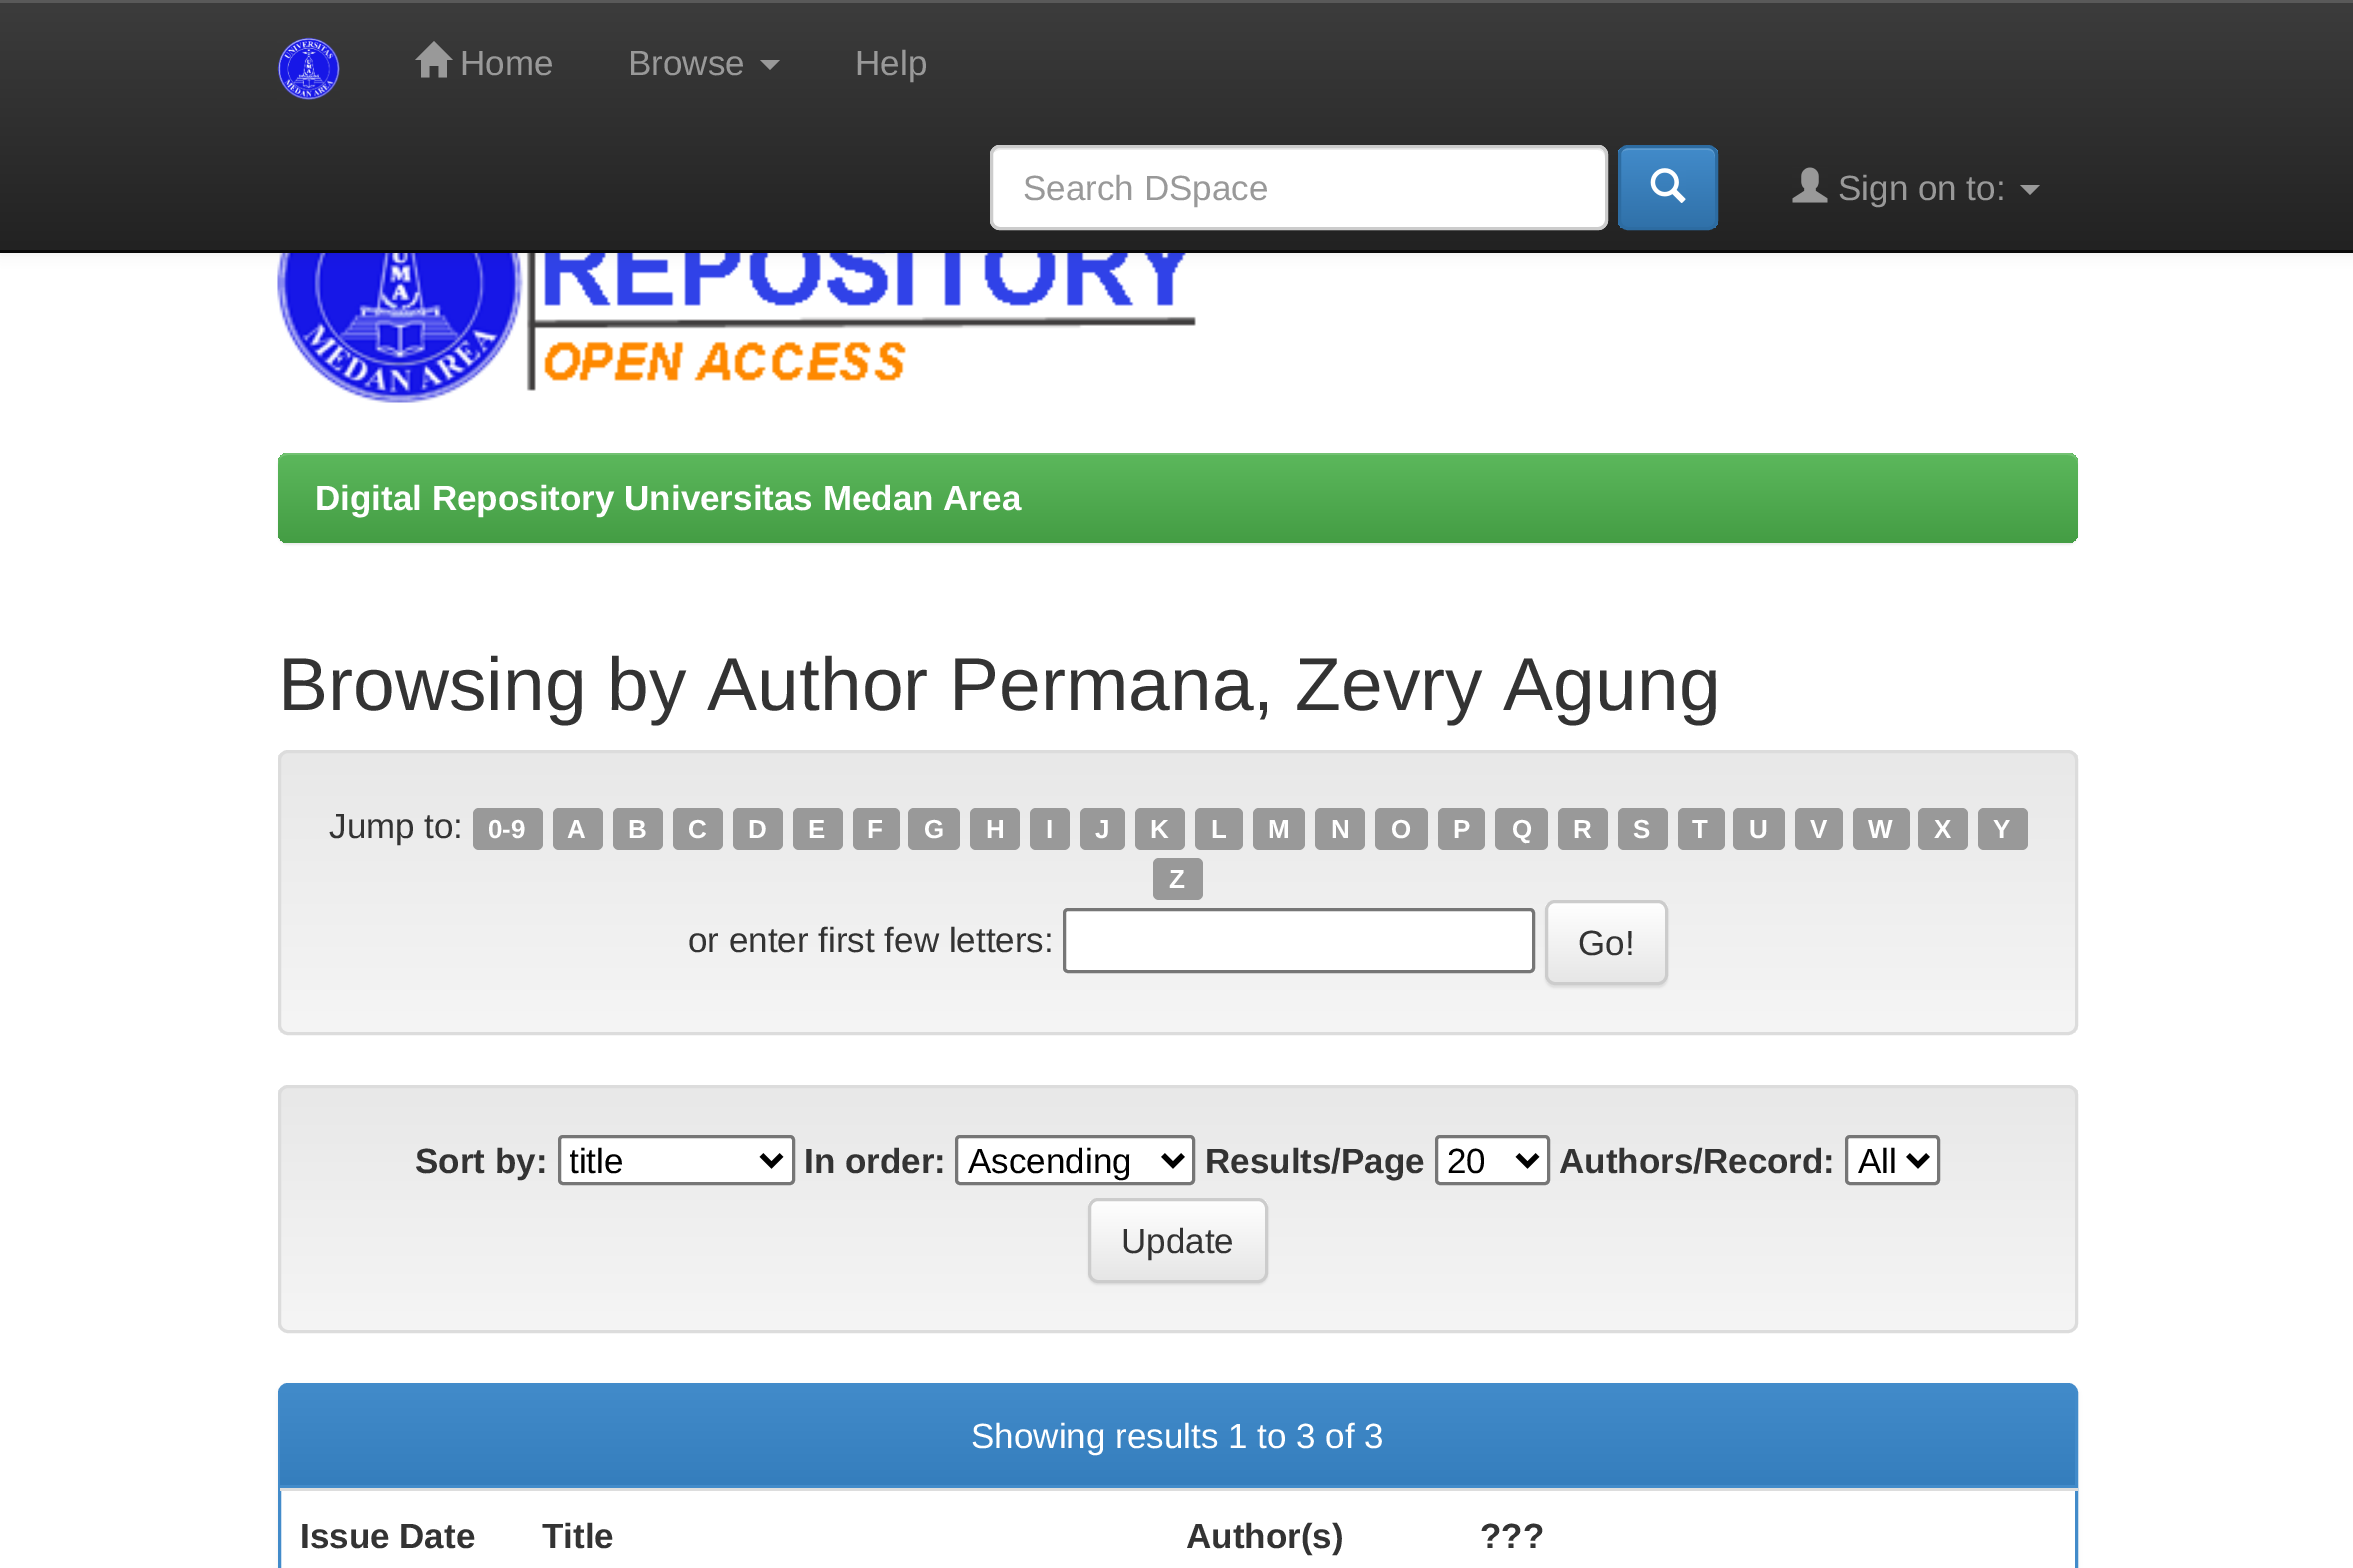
%!PS
<< /PageSize [2353 1568] /PageUsesTransparency true >> setpagedevice
/rgb { dup -16 bitshift 255 div exch dup -8 bitshift 255 and 255 div exch 255 and 255 div setrgbcolor } def
/font { [ exch dup neg 0 0 3 -1 roll 0 0 ] selectfont } def
/text { moveto show } def
/alpha { dup .setfillconstantalpha .setstrokeconstantalpha } def
/roundrect { 5 dict begin { /r /h /w /y /x } { exch def } forall
  x r add y moveto x w add y 2 copy h add r arct x w add y h add x 1 index r arct
  x y h add x y r arct x y 2 copy exch w add exch r arct closepath end } def
/shadow { 12 dict begin { /a /b /q /h /w /y /x } { exch def } forall gsave /was 0 def
  9 -2 -9 { dup b mul 4 div /e exch def 1 sub .425 mul 2.718 exch exp 1 add a .99 .min exch div /now exch def
    1 1 now sub 1 was sub div sub alpha /was now def
    w h .min e 2 mul add 0 gt { x e sub y e sub w e 2 mul add h e 2 mul add
      q e add b .6 mul add w h .min 2 div e add .min 0 .max roundrect fill } if } for grestore end } def
/picture { 5 dict begin { /h /w /y /x /name } { exch def } forall
  gsave x y translate w h scale
  w h 8 [w 0 0 h 0 0] name (r) file false 3 colorimage grestore end } def
0 .pushpdf14devicefilter
0 1568 translate 1 -1 scale
4 setmiterlimit
/s1 { /LiberationSans-Regular 35 font 16#999999 rgb } def
/s2 { /LiberationSans-Bold 35 font 16#FFFFFF rgb } def
/s3 { /LiberationSans-Regular 75 font 16#333333 rgb } def
/s4 { /LiberationSans-Regular 35 font 16#333333 rgb } def
/s5 { /LiberationSans-Bold 26 font 16#FFFFFF rgb } def
/s6 { /LiberationSans-Bold 35 font 16#333333 rgb } def
/s7 { /LiberationSans-Regular 35 font 16#000000 rgb } def
/s8 { /LiberationSans-Regular 35 font 16#FFFFFF rgb } def
16#FFFFFF rgb
0 0 2353 1568 rectfill
(pic4.raw) 277 253 919 150 picture
16#000000 rgb
0 3 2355 252 0 6 0.07 shadow
gsave 0 3 moveto 2353 3 lineto 2353 250 lineto 0 250 lineto closepath clip newpath
<< /ShadingType 2 /ColorSpace /DeviceRGB /Coords [1178 0 1178 250] /Extend [true true] /Function << /FunctionType 2 /Domain [0 1] /C0 [0.235 0.235 0.235] /C1 [0.133 0.133 0.133] /N 1 >> >> shfill grestore
16#595959 rgb
0 0 2353 3 rectfill
16#080808 rgb
0 250 2353 3 rectfill
(pic1.raw) 277 37 63 63 picture
16#999999 rgb
453 60 moveto 447 60 lineto 447 77.5 lineto 438.5 77.5 lineto 438.5 66 lineto 429.5 66 lineto 429.5 77.5 lineto 421 77.5 lineto 421 60 lineto 415 60 lineto 434 41 lineto closepath fill
s1
(Home) 460 75 text
(Browse) 628 75 text
760 60 moveto 780 60 lineto 770 70 lineto closepath fill
(Help) 855 75 text
16#FFFFFF rgb
990 145 618 85 10 roundrect fill
16#ECECEC rgb
1000 150 moveto 1598 150 lineto 1602 150 1605 153 1605 158 curveto 1605 156 lineto 1605 152 1601 148 1597 148 curveto 1001 148 lineto 998 148 995 150 993 153 curveto 995 151 998 150 1000 150 curveto closepath fill
16#CCCCCC rgb
3 setlinewidth
991.5 146.5 615 82 8.5 roundrect stroke
s1
(Search DSpace) 1023 200 text
gsave
1618 145 100 85 10 roundrect clip newpath
gsave 1618 148 moveto 1718 148 lineto 1718 228 lineto 1618 228 lineto closepath clip newpath
<< /ShadingType 2 /ColorSpace /DeviceRGB /Coords [1668 148 1668 228] /Extend [true true] /Function << /FunctionType 2 /Domain [0 1] /C0 [0.259 0.545 0.792] /C1 [0.188 0.443 0.663] /N 1 >> >> shfill grestore
grestore
16#5E9CD1 rgb
1628 150 moveto 1708 150 lineto 1712 150 1715 153 1715 158 curveto 1715 145 1704 148 1694 148 curveto 1641 148 lineto 1631 148 1620 145 1620 158 curveto 1620 153 1623 150 1628 150 curveto closepath fill
16#2D6CA2 rgb
1619.5 146.5 97 82 8.5 roundrect stroke
(pic2.raw) 1650 168 36 35 picture
(pic3.raw) 1792 167 36 36 picture
s1
(Sign on to:) 1838 200 text
2020 185 moveto 2040 185 lineto 2030 195 lineto closepath fill
16#000000 rgb
278 455 1800 90 10 1 0.07 shadow
gsave 278 453 1800 90 10 roundrect clip newpath
<< /ShadingType 2 /ColorSpace /DeviceRGB /Coords [1178 452 1178 543] /Extend [true true] /Function << /FunctionType 2 /Domain [0 1] /C0 [0.361 0.722 0.361] /C1 [0.267 0.616 0.267] /N 1 >> >> shfill grestore
0.15 alpha
16#FFFFFF rgb
288 455 moveto 2068 455 lineto 2073 455 2078 459 2078 465 curveto 2078 459 2075 453 2068 453 curveto 288 453 lineto 281 453 278 459 278 465 curveto 278 459 282 455 288 455 curveto closepath fill
1 alpha
s2
(Digital Repository Universitas Medan Area) 315 510 text
s3
(Browsing by Author Permana, Zevry Agung) 278 710 text
gsave
278 750 1800 285 10 roundrect clip newpath
gsave 278 753 moveto 2078 753 lineto 2078 1033 lineto 278 1033 lineto closepath clip newpath
<< /ShadingType 2 /ColorSpace /DeviceRGB /Coords [1178 752 1178 1033] /Extend [true true] /Function << /FunctionType 2 /Domain [0 1] /C0 [0.91 0.91 0.91] /C1 [0.961 0.961 0.961] /N 1 >> >> shfill grestore
grestore
16#DCDCDC rgb
279.5 751.5 1797 282 8.5 roundrect stroke
s4
(Jump to:) 329 838 text
16#999999 rgb
473 808 70 42 6 roundrect fill
s5
(0-9) 488 838 text
16#999999 rgb
553 808 50 42 6 roundrect fill
s5
(A) 567 838 text
16#999999 rgb
613 808 50 42 6 roundrect fill
s5
(B) 628 838 text
16#999999 rgb
673 808 50 42 6 roundrect fill
s5
(C) 688 838 text
16#999999 rgb
733 808 50 42 6 roundrect fill
s5
(D) 748 838 text
16#999999 rgb
793 808 50 42 6 roundrect fill
s5
(E) 808 838 text
16#999999 rgb
853 808 47 42 6 roundrect fill
s5
(F) 867 838 text
16#999999 rgb
908 808 52 42 6 roundrect fill
s5
(G) 924 838 text
16#999999 rgb
970 808 50 42 6 roundrect fill
s5
(H) 986 838 text
16#999999 rgb
1030 808 40 42 6 roundrect fill
s5
(I) 1046 838 text
16#999999 rgb
1080 808 45 42 6 roundrect fill
s5
(J) 1095 838 text
16#999999 rgb
1135 808 50 42 6 roundrect fill
s5
(K) 1150 838 text
16#999999 rgb
1195 808 48 42 6 roundrect fill
s5
(L) 1211 838 text
16#999999 rgb
1253 808 52 42 6 roundrect fill
s5
(M) 1268 838 text
16#999999 rgb
1315 808 50 42 6 roundrect fill
s5
(N) 1331 838 text
16#999999 rgb
1375 808 53 42 6 roundrect fill
s5
(O) 1391 838 text
16#999999 rgb
1438 808 47 42 6 roundrect fill
s5
(P) 1453 838 text
16#999999 rgb
1495 808 53 42 6 roundrect fill
s5
(Q) 1512 838 text
16#999999 rgb
1558 808 50 42 6 roundrect fill
s5
(R) 1573 838 text
16#999999 rgb
1618 808 50 42 6 roundrect fill
s5
(S) 1633 838 text
16#999999 rgb
1678 808 47 42 6 roundrect fill
s5
(T) 1692 838 text
16#999999 rgb
1733 808 52 42 6 roundrect fill
s5
(U) 1749 838 text
16#999999 rgb
1795 808 48 42 6 roundrect fill
s5
(V) 1810 838 text
16#999999 rgb
1853 808 57 42 6 roundrect fill
s5
(W) 1868 838 text
16#999999 rgb
1918 808 50 42 6 roundrect fill
s5
(X) 1934 838 text
16#999999 rgb
1978 808 50 42 6 roundrect fill
s5
(Y) 1993 838 text
16#999999 rgb
1153 858 50 42 6 roundrect fill
s5
(Z) 1169 888 text
s4
(or enter first few letters:) 688 952 text
16#FFFFFF rgb
1064.5 909.5 469 62 3.5 roundrect gsave fill grestore
16#767676 rgb
stroke
16#000000 rgb
1545 903 123 85 10 1 0.07 shadow
gsave
1545 900 123 85 10 roundrect clip newpath
gsave 1545 903 moveto 1668 903 lineto 1668 983 lineto 1545 983 lineto closepath clip newpath
<< /ShadingType 2 /ColorSpace /DeviceRGB /Coords [1606 903 1606 983] /Extend [true true] /Function << /FunctionType 2 /Domain [0 1] /C0 [1 1 1] /C1 [0.902 0.902 0.902] /N 1 >> >> shfill grestore
grestore
16#CCCCCC rgb
1546.5 901.5 120 82 8.5 roundrect stroke
s4
(Go!) 1578 955 text
gsave
278 1085 1800 248 10 roundrect clip newpath
gsave 278 1088 moveto 2078 1088 lineto 2078 1330 lineto 278 1330 lineto closepath clip newpath
<< /ShadingType 2 /ColorSpace /DeviceRGB /Coords [1178 1087 1178 1330] /Extend [true true] /Function << /FunctionType 2 /Domain [0 1] /C0 [0.91 0.91 0.91] /C1 [0.961 0.961 0.961] /N 1 >> >> shfill grestore
grestore
16#DCDCDC rgb
279.5 1086.5 1797 245 8.5 roundrect stroke
s6
(Sort by:) 415 1173 text
16#FFFFFF rgb
559.5 1136.5 234 47 3.5 roundrect gsave fill grestore
16#767676 rgb
stroke
16#000000 rgb
5 setlinewidth
761.5 1155 moveto 771.5 1165 lineto 781.5 1155 lineto stroke
gsave
570 1138 183 45 rectclip
s7
(title) 569 1173 text
grestore
s6
(In order:) 804 1173 text
16#FFFFFF rgb
956.5 1136.5 237 47 3.5 roundrect gsave fill grestore
16#767676 rgb
3 setlinewidth
stroke
16#000000 rgb
5 setlinewidth
1163 1155 moveto 1173 1165 lineto 1183 1155 lineto stroke
s7
(Ascending) 968 1173 text
s6
(Results/Page) 1205 1173 text
16#FFFFFF rgb
1436.5 1136.5 112 47 3.5 roundrect gsave fill grestore
16#767676 rgb
3 setlinewidth
stroke
16#000000 rgb
5 setlinewidth
1517.5 1155 moveto 1527.5 1165 lineto 1537.5 1155 lineto stroke
s7
(20) 1447 1173 text
s6
(Authors/Record:) 1559 1173 text
16#FFFFFF rgb
1846.5 1136.5 92 47 3.5 roundrect gsave fill grestore
16#767676 rgb
3 setlinewidth
stroke
16#000000 rgb
5 setlinewidth
1908 1155 moveto 1918 1165 lineto 1928 1155 lineto stroke
s7
(All) 1858 1173 text
1088 1200 180 85 10 1 0.07 shadow
gsave
1088 1198 180 85 10 roundrect clip newpath
gsave 1088 1200 moveto 1268 1200 lineto 1268 1280 lineto 1088 1280 lineto closepath clip newpath
<< /ShadingType 2 /ColorSpace /DeviceRGB /Coords [1178 1200 1178 1280] /Extend [true true] /Function << /FunctionType 2 /Domain [0 1] /C0 [1 1 1] /C1 [0.902 0.902 0.902] /N 1 >> >> shfill grestore
grestore
16#CCCCCC rgb
3 setlinewidth
1089.5 1199.5 177 82 8.5 roundrect stroke
s4
(Update) 1121 1253 text
16#000000 rgb
278 1385 1800 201 10 2.5 0.05 shadow
16#FFFFFF rgb
279.5 1384.5 1797 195 8.5 roundrect gsave fill grestore
16#428BCA rgb
stroke
288 1385 moveto 2067 1385 lineto 2071.5 1385 2075 1388.5 2075 1393 curveto 2075 1488 lineto 280 1488 lineto 280 1393 lineto 280 1388.5 283.5 1385 288 1385 curveto closepath fill
gsave 288 1385 moveto 2067 1385 lineto 2071.5 1385 2075 1388.5 2075 1393 curveto 2075 1485 lineto 280 1485 lineto 280 1393 lineto 280 1388.5 283.5 1385 288 1385 curveto closepath clip newpath
<< /ShadingType 2 /ColorSpace /DeviceRGB /Coords [1178 1385 1178 1485] /Extend [true true] /Function << /FunctionType 2 /Domain [0 1] /C0 [0.259 0.545 0.792] /C1 [0.208 0.494 0.741] /N 1 >> >> shfill grestore
s8
(Showing results 1 to 3 of 3) 971 1448 text
s6
(Issue Date) 300 1548 text
(Title) 542 1548 text
(Author\(s\)) 1186 1548 text
16#DDDDDD rgb
280 1488 1798 3 rectfill
s6
(???) 1480 1548 text
.poppdf14devicefilter showpage
